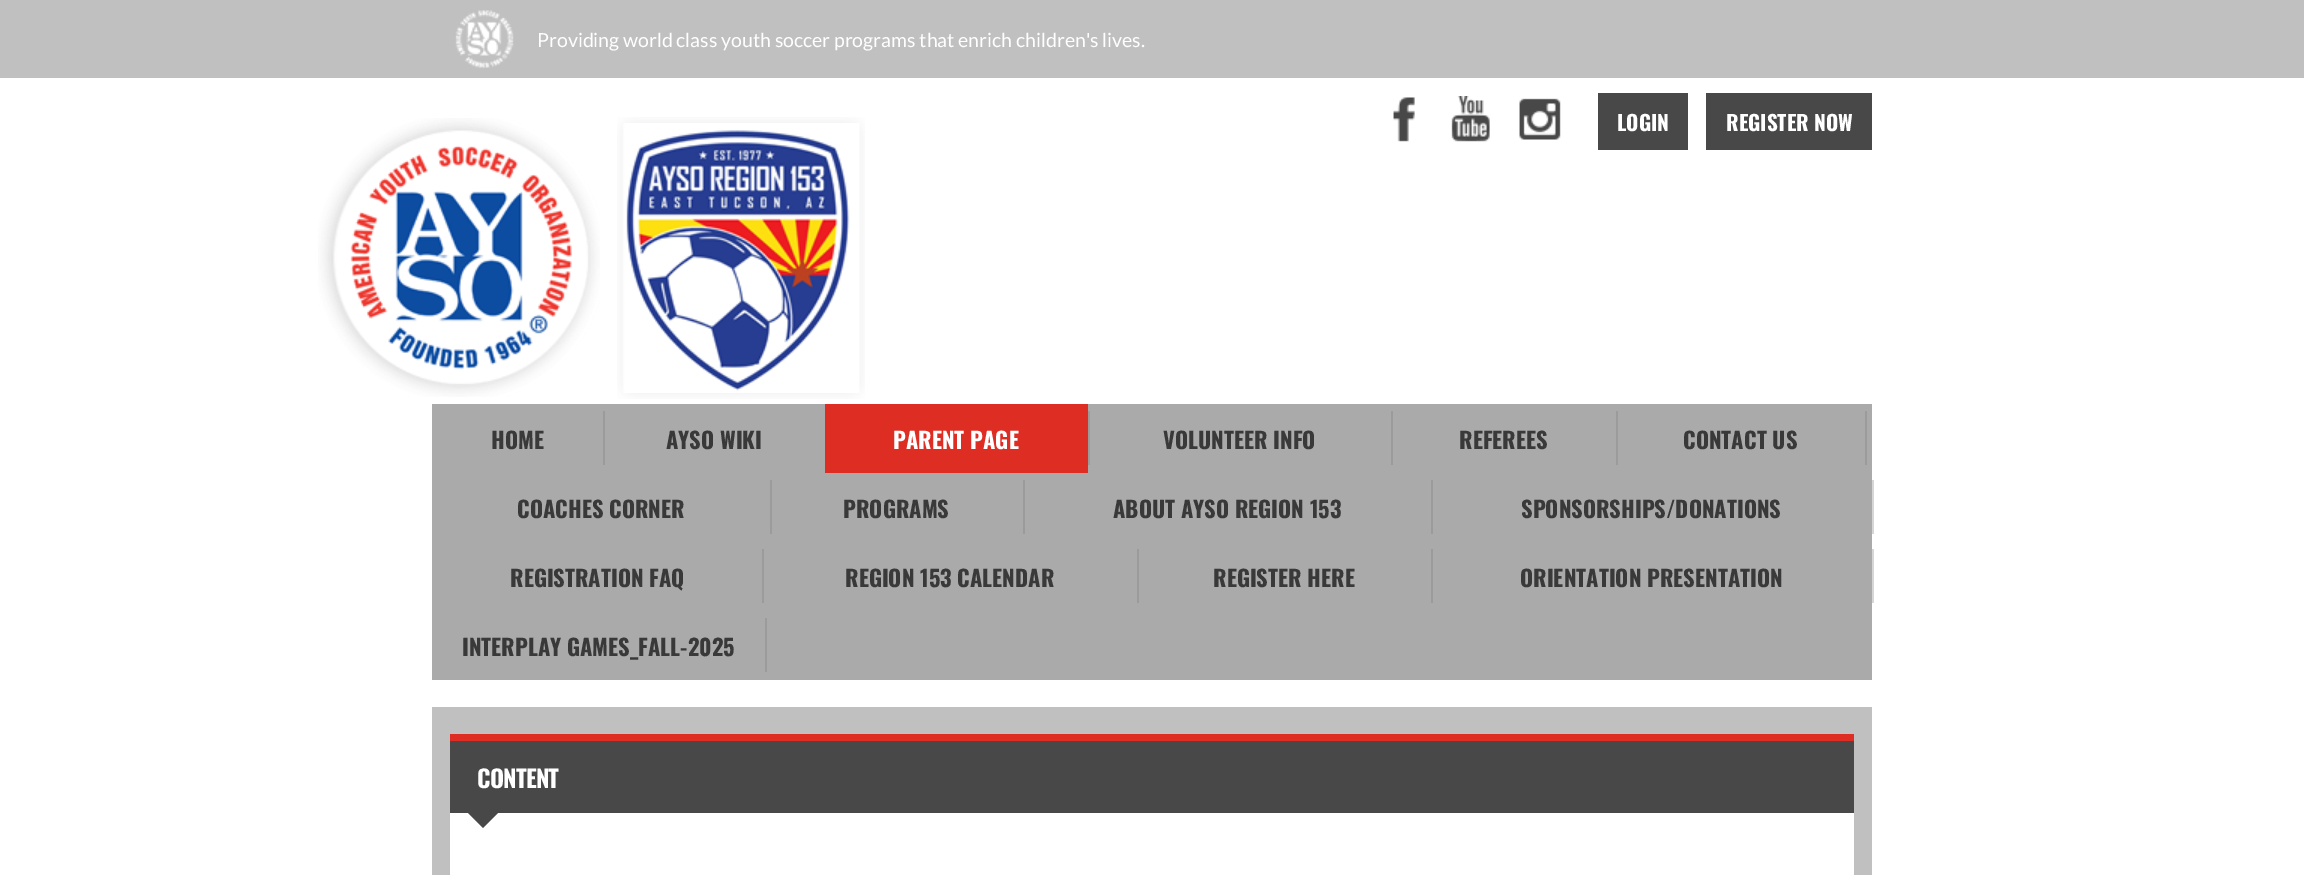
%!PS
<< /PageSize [2304 875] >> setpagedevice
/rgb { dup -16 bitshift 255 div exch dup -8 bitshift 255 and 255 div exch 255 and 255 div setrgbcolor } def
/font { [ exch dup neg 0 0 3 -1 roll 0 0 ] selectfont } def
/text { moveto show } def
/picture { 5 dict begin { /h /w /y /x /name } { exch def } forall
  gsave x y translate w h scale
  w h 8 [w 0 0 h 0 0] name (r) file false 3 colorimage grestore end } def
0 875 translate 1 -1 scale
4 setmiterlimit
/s1 { /Lato-Regular 19.5 font 16#FFFFFF rgb } def
/s2 { /Oswald-Bold 21 font 16#FFFFFF rgb } def
/s3 { /Oswald-Bold 22.5 font 16#393939 rgb } def
/s4 { /Oswald-Bold 22.5 font 16#FFFFFF rgb } def
16#FFFFFF rgb
0 0 2304 875 rectfill
16#C0C0C0 rgb
0 0 2304 78 rectfill
(pic1.raw) 455 10 59 58 picture
s1
(Providing world class youth soccer programs that enrich children's lives.) 537 47 text
(pic2.raw) 318 118 282 279 picture
(pic3.raw) 617 117 248 282 picture
(pic4.raw) 1393 97 22 45 picture
(pic5.raw) 1451 96 39 46 picture
(pic6.raw) 1519 98 42 42 picture
16#484848 rgb
1598 93 90 57 rectfill
s2
(LOGIN) 1617 131 text
16#484848 rgb
1706 93 166 57 rectfill
s2
(REGISTER NOW) 1726 131 text
16#AAAAAB rgb
432 404 1440 276 rectfill
s3
(HOME) 491 449 text
16#9B9B9B rgb
603 411 2 54 rectfill
s3
(AYSO WIKI) 666 449 text
16#DE2E24 rgb
825 404 263 69 rectfill
s4
(PARENT PAGE) 893 449 text
16#9B9B9B rgb
1088 411 2 54 rectfill
s3
(VOLUNTEER INFO) 1163 449 text
16#9B9B9B rgb
1391 411 2 54 rectfill
s3
(REFEREES) 1459 449 text
16#9B9B9B rgb
1616 411 2 54 rectfill
s3
(CONTACT US) 1683 449 text
16#9B9B9B rgb
1865 411 2 54 rectfill
s3
(COACHES CORNER) 517 518 text
16#9B9B9B rgb
770 480 2 54 rectfill
s3
(PROGRAMS) 843 518 text
16#9B9B9B rgb
1023 480 2 54 rectfill
s3
(ABOUT AYSO REGION 153) 1113 518 text
16#9B9B9B rgb
1431 480 2 54 rectfill
s3
(SPONSORSHIPS/DONATIONS) 1521 518 text
16#D6D6D6 rgb
1872 480 2 54 rectfill
s3
(REGISTRATION FAQ) 510 587 text
16#9B9B9B rgb
762 549 2 54 rectfill
s3
(REGION 153 CALENDAR) 845 587 text
16#9B9B9B rgb
1137 549 2 54 rectfill
s3
(REGISTER HERE) 1213 587 text
16#9B9B9B rgb
1431 549 2 54 rectfill
s3
(ORIENTATION PRESENTATION) 1520 587 text
16#D6D6D6 rgb
1872 549 2 54 rectfill
s3
(INTERPLAY GAMES_FALL-2025) 462 656 text
16#9B9B9B rgb
765 618 2 54 rectfill
16#C0C0C0 rgb
432 707 1440 168 rectfill
16#484848 rgb
450 741 1404 72 rectfill
16#DE2E24 rgb
450 734 1404 7 rectfill
/Oswald-Bold 24 font
16#FFFFFF rgb
477 788 moveto -0.75 0 (CONTENT) ashow
450 813 1404 62 rectfill
16#484848 rgb
468 813 moveto 498 813 lineto 483 828 lineto closepath fill
showpage
